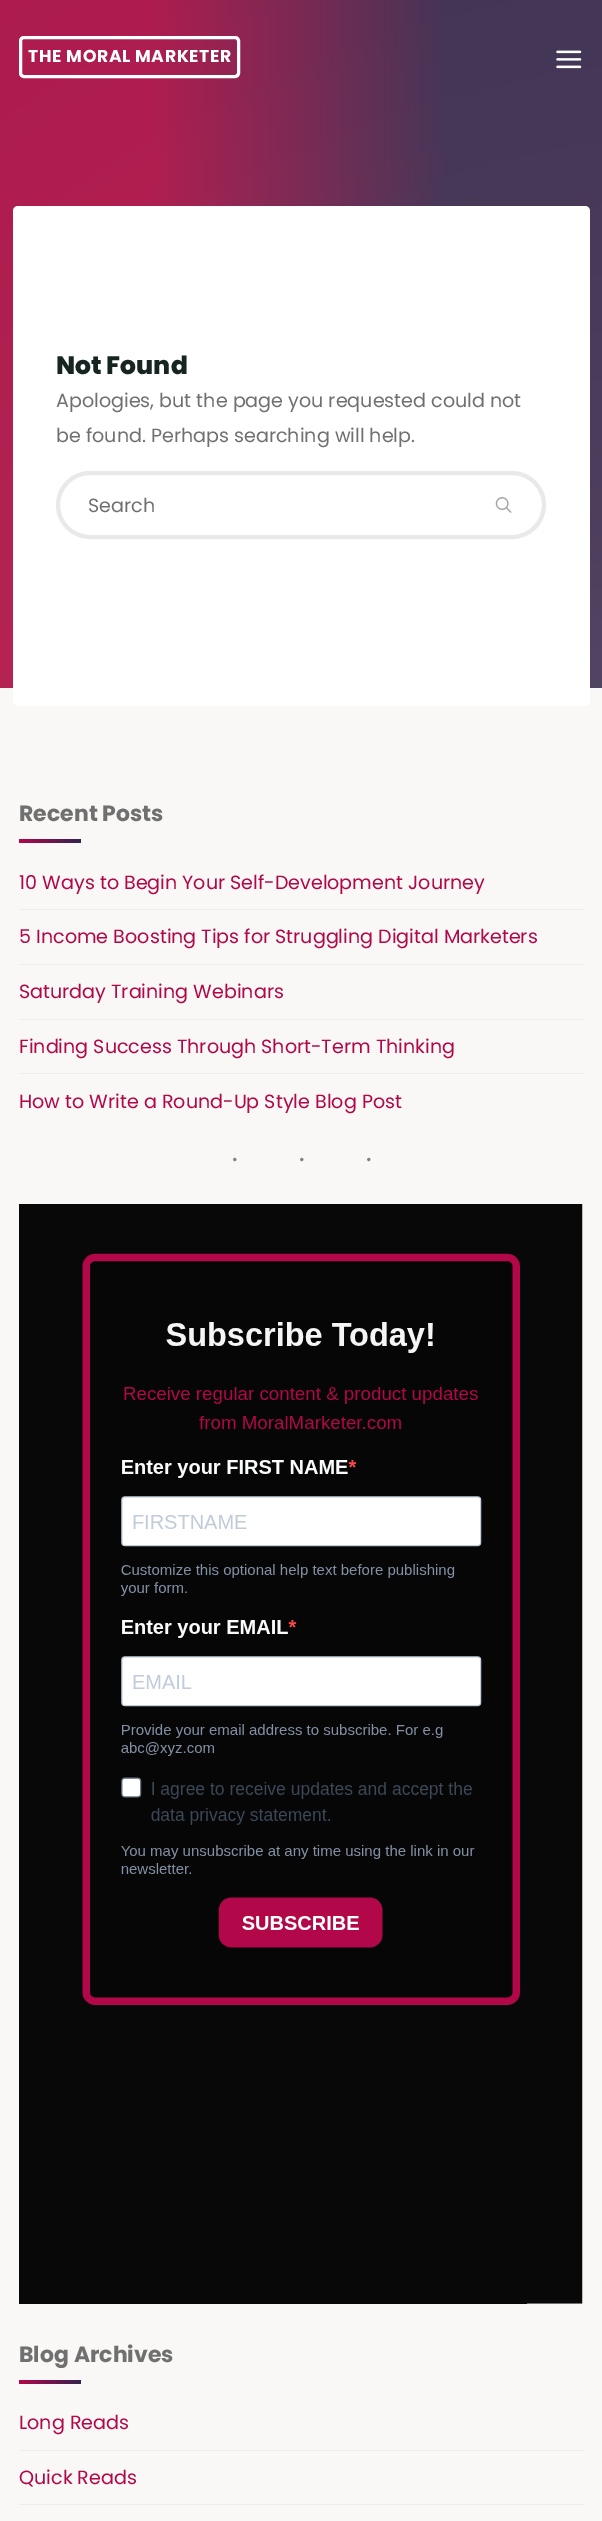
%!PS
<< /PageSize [602 2521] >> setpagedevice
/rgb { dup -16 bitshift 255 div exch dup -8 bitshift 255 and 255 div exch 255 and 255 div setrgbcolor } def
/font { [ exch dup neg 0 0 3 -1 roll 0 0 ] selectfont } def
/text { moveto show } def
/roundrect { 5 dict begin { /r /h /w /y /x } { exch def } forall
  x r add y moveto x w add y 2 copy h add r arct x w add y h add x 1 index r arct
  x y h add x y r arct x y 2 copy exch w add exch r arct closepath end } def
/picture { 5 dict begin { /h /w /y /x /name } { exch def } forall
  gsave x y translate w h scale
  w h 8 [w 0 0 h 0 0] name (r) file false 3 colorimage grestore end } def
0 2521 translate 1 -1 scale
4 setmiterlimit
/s1 { /Poppins-ExtraBold 25 font 16#162521 rgb } def
/s2 { /Poppins-Regular 19.1 font 16#707070 rgb } def
/s3 { /Poppins-Bold 22 font 16#707070 rgb } def
/s4 { /Poppins-Regular 19.1 font 16#B20748 rgb } def
16#F9F8F6 rgb
0 0 602 2521 rectfill
(pic1.raw) 0 0 602 688 picture
16#FFFFFF rgb
3 setlinewidth
20.5 37.5 218 39 3.5 roundrect stroke
/Poppins-Bold 17.25 font
28 62 moveto 0.6 0 (THE MORAL MARKETER) ashow
(pic2.raw) 556 50 26 19 picture
13 206 577 500 5 roundrect fill
s1
(Not Found) 56 374 text
s2
(Apologies, but the page you requested could not) 56 407 text
(be found. Perhaps searching will help.) 56 442 text
16#E9E9E9 rgb
4 setlinewidth
58 473 486 64 32 roundrect stroke
s2
(Search) 88 512 text
(pic3.raw) 495 497 17 16 picture
s3
(Recent Posts) 19 821 text
gsave 19 839 62 4 2 roundrect clip newpath
<< /ShadingType 2 /ColorSpace /DeviceRGB /Coords [19 841 81 841] /Extend [true true] /Function << /FunctionType 2 /Domain [0 1] /C0 [0.698 0.027 0.282] /C1 [0.196 0.137 0.31] /N 1 >> >> shfill grestore
16#EDECEA rgb
19 909 565 1 rectfill
s4
(10 Ways to Begin Your Self-Development Journey) 19 889 text
16#EDECEA rgb
19 964 565 1 rectfill
s4
(5 Income Boosting Tips for Struggling Digital Marketers) 19 943 text
16#EDECEA rgb
19 1019 565 1 rectfill
s4
(Saturday Training Webinars) 19 998 text
16#EDECEA rgb
19 1073 565 1 rectfill
s4
(Finding Success Through Short-Term Thinking) 19 1053 text
(How to Write a Round-Up Style Blog Post) 19 1108 text
/LiberationSerif-Regular 28.75 font
16#808080 rgb
230 1169 moveto 57.5 0 (···) ashow
(pic4.raw) 19 1204 564 1100 picture
s3
(Blog Archives) 19 2362 text
gsave 19 2380 62 4 2 roundrect clip newpath
<< /ShadingType 2 /ColorSpace /DeviceRGB /Coords [19 2382 81 2382] /Extend [true true] /Function << /FunctionType 2 /Domain [0 1] /C0 [0.698 0.027 0.282] /C1 [0.196 0.137 0.31] /N 1 >> >> shfill grestore
16#EDECEA rgb
19 2450 565 1 rectfill
s4
(Long Reads) 19 2429 text
16#EDECEA rgb
19 2504 565 1 rectfill
s4
(Quick Reads) 19 2484 text
showpage
